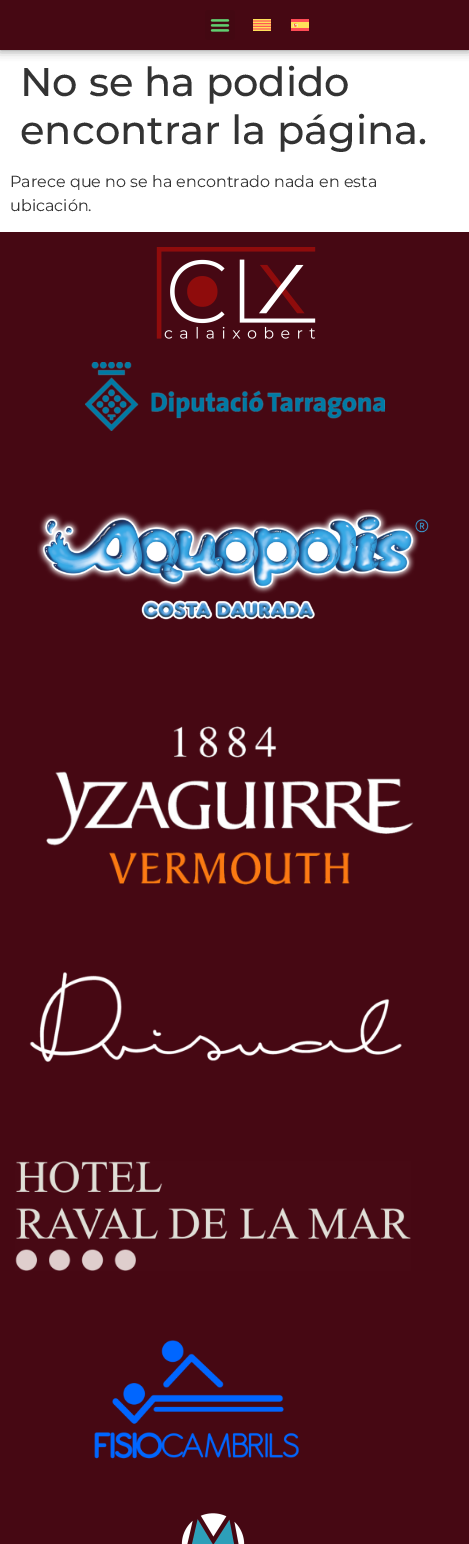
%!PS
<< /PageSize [469 1544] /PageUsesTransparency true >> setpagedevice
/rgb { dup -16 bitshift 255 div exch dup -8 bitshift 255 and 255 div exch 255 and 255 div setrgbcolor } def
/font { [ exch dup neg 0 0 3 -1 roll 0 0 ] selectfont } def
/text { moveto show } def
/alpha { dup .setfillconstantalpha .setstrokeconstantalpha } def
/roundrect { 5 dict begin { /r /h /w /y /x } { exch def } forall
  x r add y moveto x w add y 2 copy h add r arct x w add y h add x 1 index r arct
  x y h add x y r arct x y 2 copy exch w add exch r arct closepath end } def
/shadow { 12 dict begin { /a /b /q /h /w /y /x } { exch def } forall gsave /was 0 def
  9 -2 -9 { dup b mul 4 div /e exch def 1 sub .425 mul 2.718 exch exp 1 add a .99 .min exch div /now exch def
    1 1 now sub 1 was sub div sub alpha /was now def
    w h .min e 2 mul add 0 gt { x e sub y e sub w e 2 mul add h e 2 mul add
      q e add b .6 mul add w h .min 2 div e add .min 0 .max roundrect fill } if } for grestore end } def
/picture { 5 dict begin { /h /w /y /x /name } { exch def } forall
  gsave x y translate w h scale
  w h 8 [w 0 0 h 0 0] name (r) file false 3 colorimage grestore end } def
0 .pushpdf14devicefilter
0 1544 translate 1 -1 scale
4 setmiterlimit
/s1 { /Montserrat-Medium 40 font 16#333333 rgb } def
/s2 { /Montserrat-Regular 16 font 16#333333 rgb } def
16#FFFFFF rgb
0 0 469 1544 rectfill
16#000000 rgb
0 0 469 50 0 5 0.5 shadow
16#460813 rgb
0 0 469 50 rectfill
16#430812 rgb
205 10 30 30 3 roundrect fill
(pic1.raw) 210 19 20 13 picture
(pic2.raw) 253 19 18 12 picture
(pic3.raw) 291 19 18 12 picture
s1
(No se ha podido) 20 96 text
(encontrar la página.) 20 144 text
s2
(Parece que no se ha encontrado nada en esta) 10 187 text
(ubicación.) 10 211 text
16#460813 rgb
0 232 469 1312 rectfill
(pic4.raw) 156 247 160 92 picture
(pic5.raw) 85 362 300 69 picture
(pic6.raw) 37 509 392 111 picture
(pic7.raw) 46 726 368 159 picture
(pic8.raw) 29 972 373 90 picture
(pic9.raw) 15 1161 396 110 picture
(pic10.raw) 94 1340 206 119 picture
(pic11.raw) 181 1513 64 31 picture
.poppdf14devicefilter showpage
